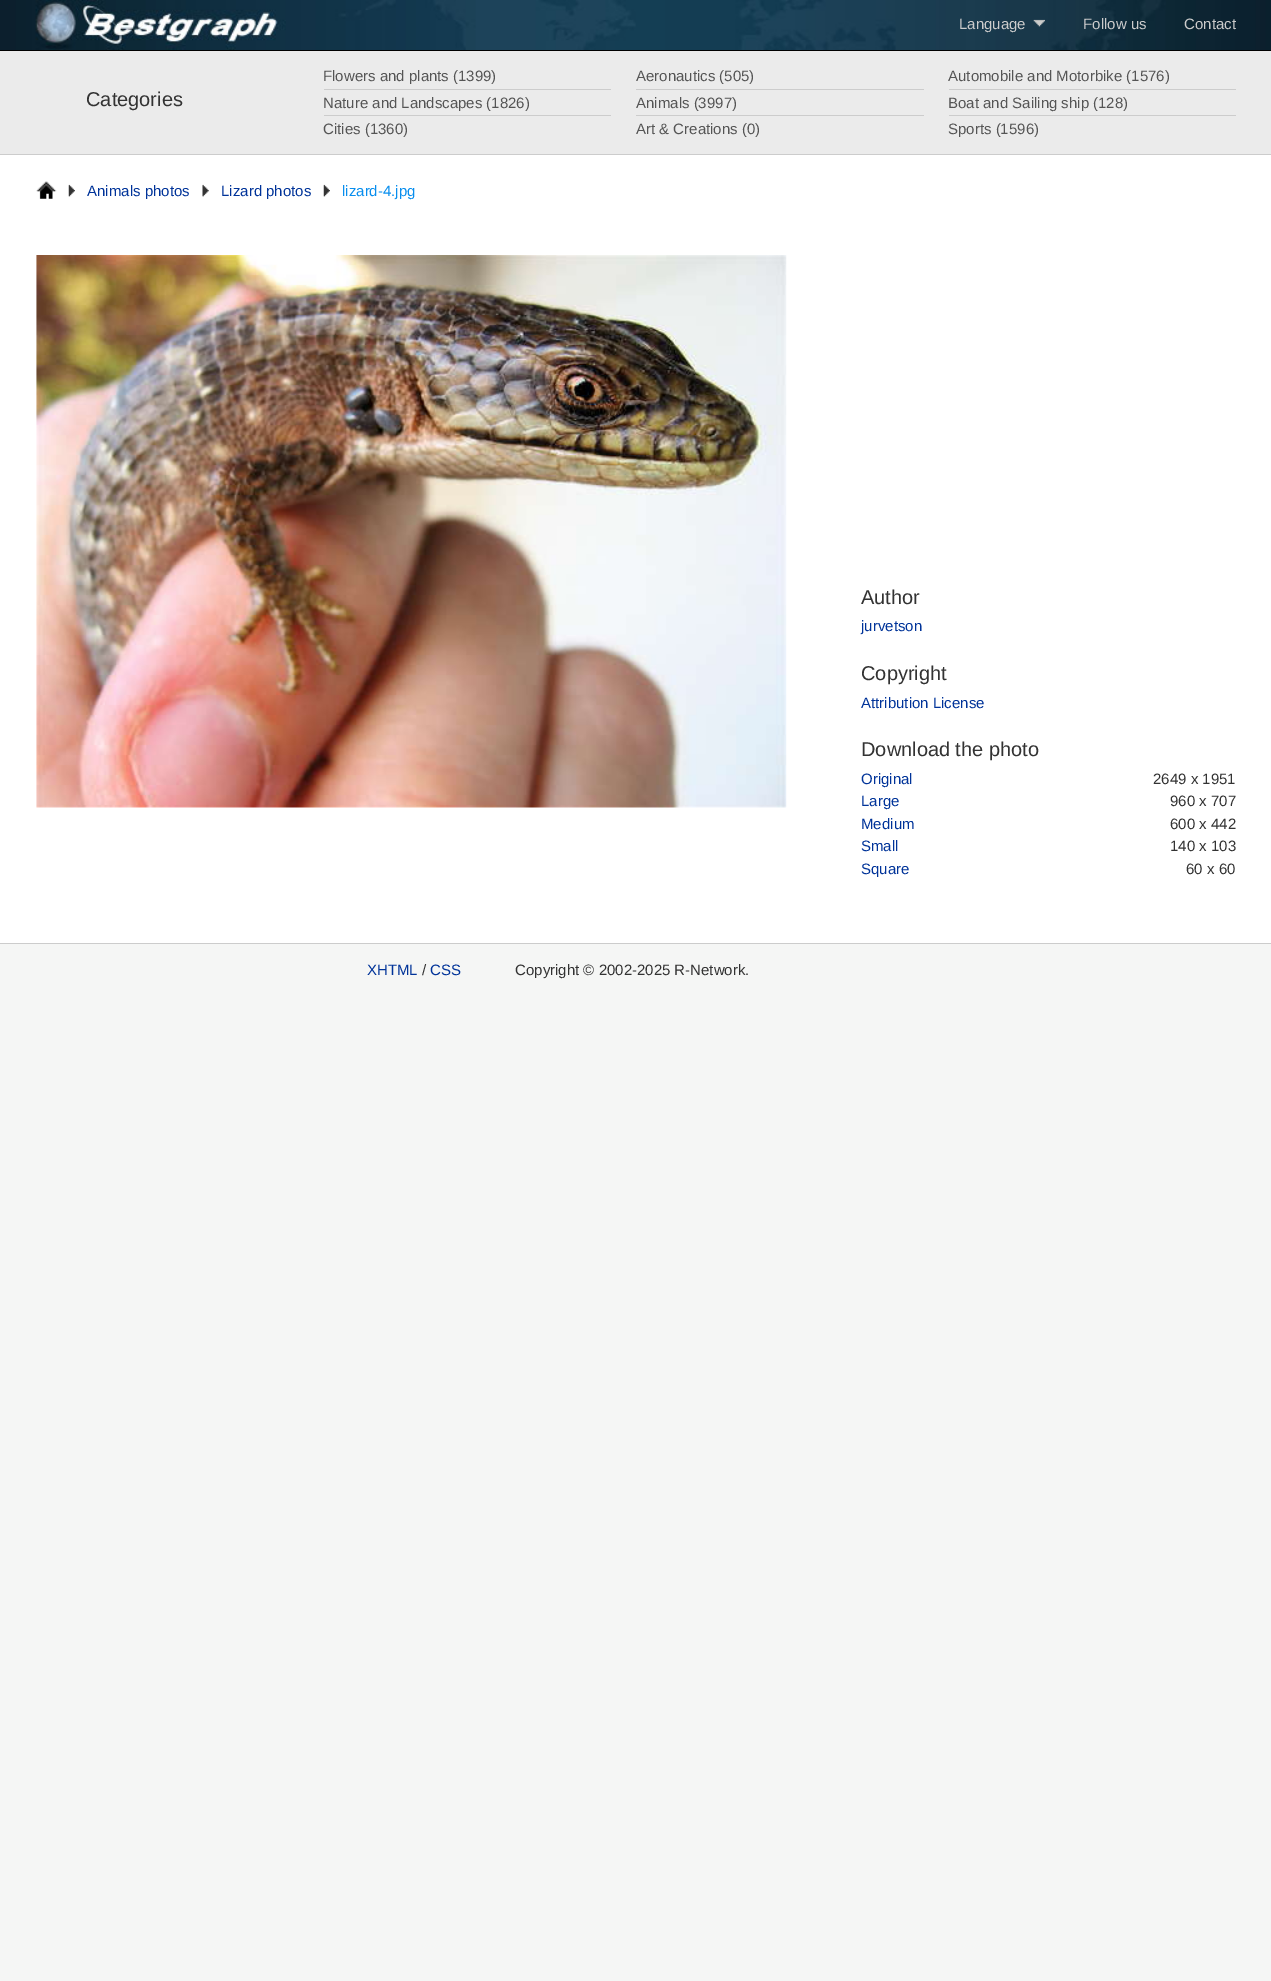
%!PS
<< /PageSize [1271 1981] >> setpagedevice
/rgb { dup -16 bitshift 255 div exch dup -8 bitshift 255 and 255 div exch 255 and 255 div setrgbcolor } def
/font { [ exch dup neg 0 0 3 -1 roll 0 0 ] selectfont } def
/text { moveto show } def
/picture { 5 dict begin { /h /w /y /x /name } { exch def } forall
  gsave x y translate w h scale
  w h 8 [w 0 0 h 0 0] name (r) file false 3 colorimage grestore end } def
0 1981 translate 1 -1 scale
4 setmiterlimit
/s1 { /LiberationSans-Regular 15 font 16#CCCCCC rgb } def
/s2 { /LiberationSans-Regular 20 font 16#333333 rgb } def
/s3 { /LiberationSans-Regular 15 font 16#555555 rgb } def
/s4 { /LiberationSans-Regular 15 font 16#003399 rgb } def
/s5 { /LiberationSans-Regular 15 font 16#088EEE rgb } def
/s6 { /LiberationSans-Regular 15 font 16#333333 rgb } def
16#F5F6F5 rgb
0 0 1271 1981 rectfill
16#000000 rgb
0 50 1271 1 rectfill
(pic1.raw) 0 0 1271 50 picture
s1
(Language) 959 29 text
(pic2.raw) 1033 19 12 8 picture
(Follow us) 1083 29 text
(Contact) 1184 29 text
16#EBEBEB rgb
0 51 1271 103 rectfill
16#CCCCCC rgb
0 154 1271 1 rectfill
s2
(Categories) 86 106 text
16#CCCCCC rgb
324 89 287 1 rectfill
s3
(Flowers and plants \(1399\)) 323 81 text
16#CCCCCC rgb
636 89 288 1 rectfill
s3
(Aeronautics \(505\)) 636 81 text
16#CCCCCC rgb
949 89 287 1 rectfill
s3
(Automobile and Motorbike \(1576\)) 948 81 text
16#CCCCCC rgb
324 115 287 1 rectfill
s3
(Nature and Landscapes \(1826\)) 323 108 text
16#CCCCCC rgb
636 115 288 1 rectfill
s3
(Animals \(3997\)) 636 108 text
16#CCCCCC rgb
949 115 287 1 rectfill
s3
(Boat and Sailing ship \(128\)) 948 108 text
(Cities \(1360\)) 323 134 text
(Art & Creations \(0\)) 636 134 text
(Sports \(1596\)) 948 134 text
16#FFFFFF rgb
0 155 1271 788 rectfill
(pic3.raw) 36 181 21 18 picture
(pic4.raw) 68 184 7 13 picture
s4
(Animals photos) 87 196 text
(pic5.raw) 202 184 7 13 picture
(Lizard photos) 221 196 text
(pic4.raw) 323 184 7 13 picture
s5
(lizard-4.jpg) 342 196 text
(pic6.raw) 36 255 751 553 picture
s2
(Author) 861 604 text
s4
(jurvetson) 861 631 text
s2
(Copyright) 861 680 text
s4
(Attribution License) 861 708 text
s2
(Download the photo) 861 756 text
s4
(Original) 861 784 text
s6
(2649 x 1951) 1153 784 text
s4
(Large) 861 806 text
s6
(960 x 707) 1170 806 text
s4
(Medium) 861 829 text
s6
(600 x 442) 1170 829 text
s4
(Small) 861 851 text
s6
(140 x 103) 1170 851 text
s4
(Square) 861 874 text
s6
(60 x 60) 1186 874 text
16#CCCCCC rgb
0 943 1271 1 rectfill
s4
(XHTML) 367 975 text
s6
(/) 422 975 text
s4
(CSS) 430 975 text
s6
(Copyright © 2002-2025 R-Network.) 515 975 text
showpage
